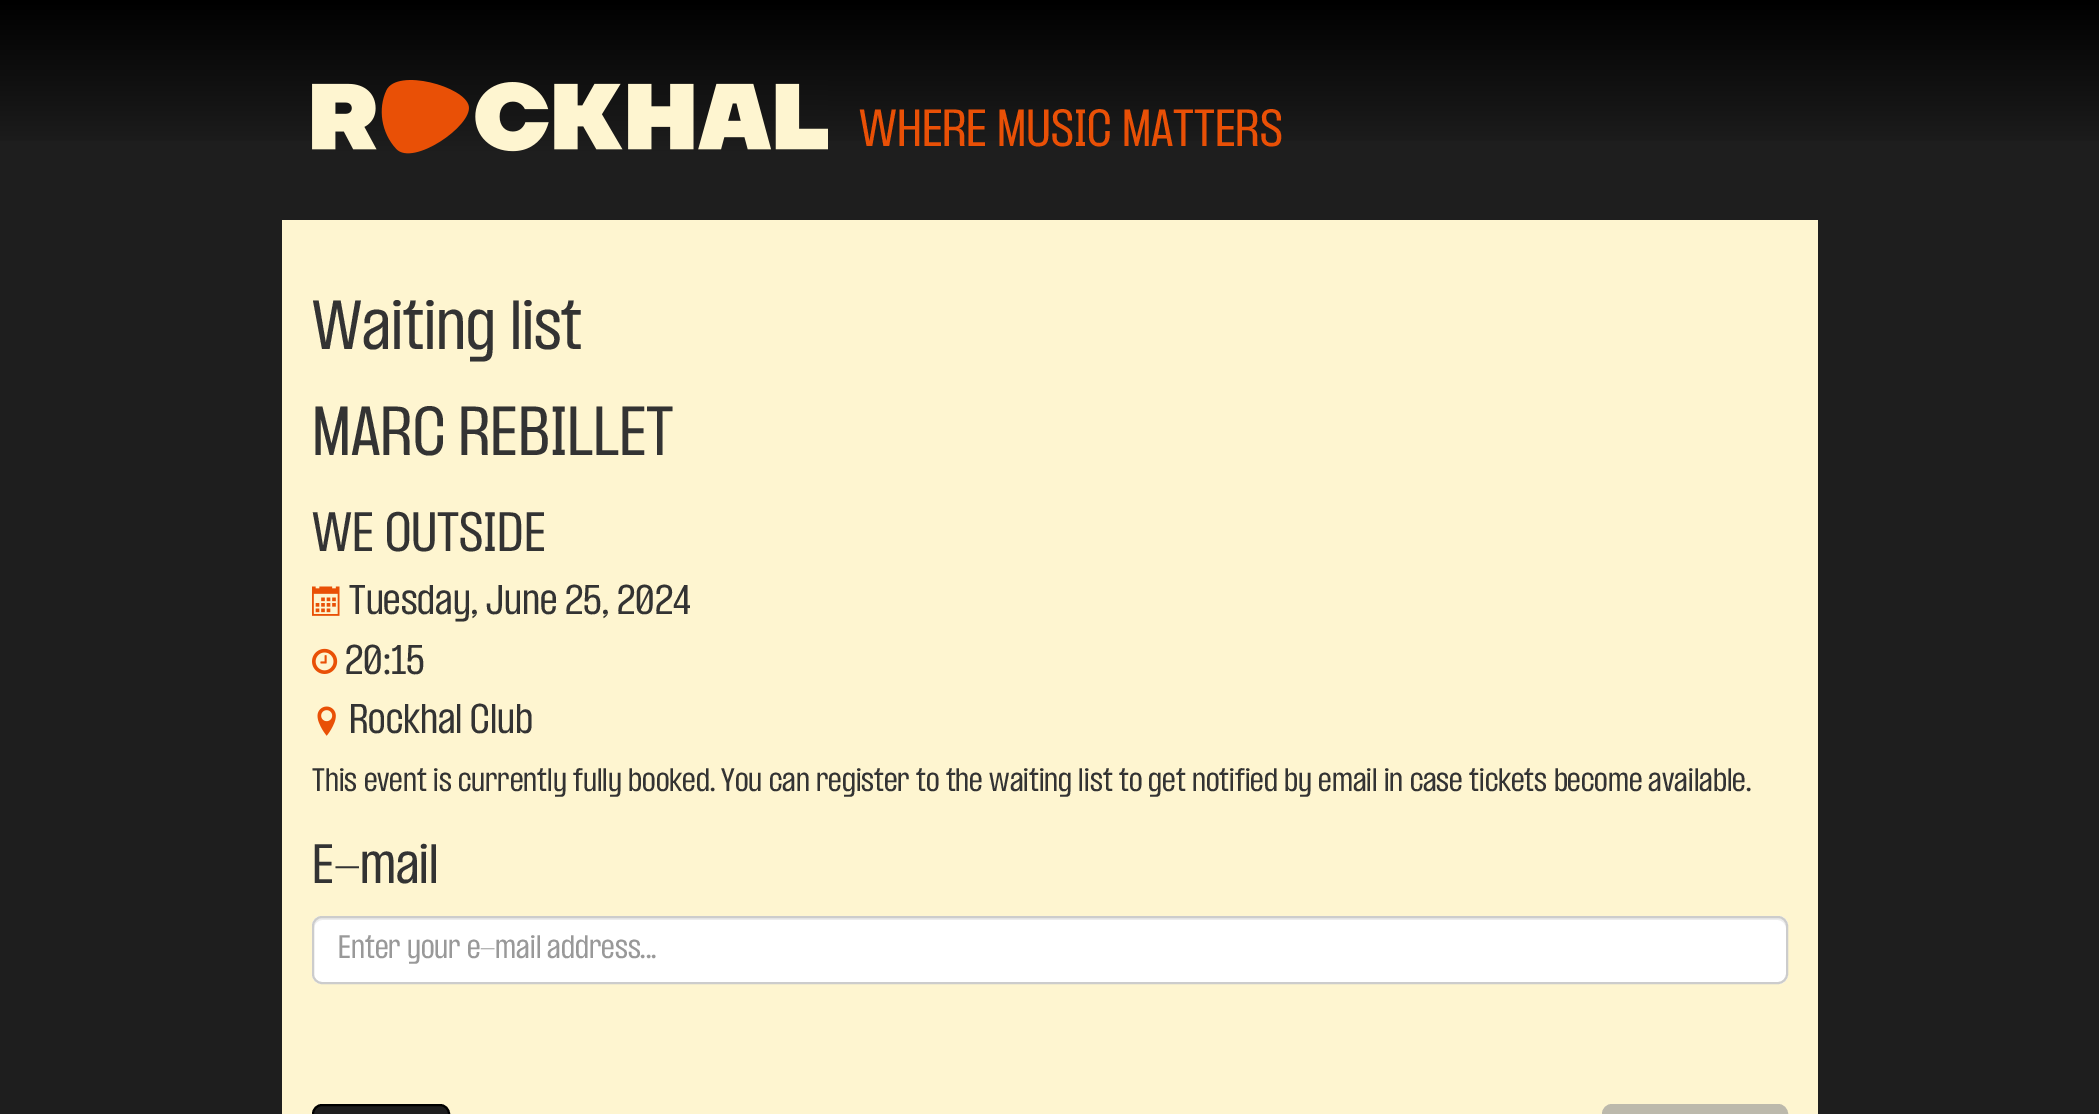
%!PS
<< /PageSize [2099 1114] >> setpagedevice
/rgb { dup -16 bitshift 255 div exch dup -8 bitshift 255 and 255 div exch 255 and 255 div setrgbcolor } def
/font { [ exch dup neg 0 0 3 -1 roll 0 0 ] selectfont } def
/text { moveto show } def
/roundrect { 5 dict begin { /r /h /w /y /x } { exch def } forall
  x r add y moveto x w add y 2 copy h add r arct x w add y h add x 1 index r arct
  x y h add x y r arct x y 2 copy exch w add exch r arct closepath end } def
/picture { 5 dict begin { /h /w /y /x /name } { exch def } forall
  gsave x y translate w h scale
  w h 8 [w 0 0 h 0 0] name (r) file false 3 colorimage grestore end } def
0 1114 translate 1 -1 scale
4 setmiterlimit
/s1 { /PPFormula-Regular 45.25 font 16#E95006 rgb } def
/s2 { /PPFormula-Regular 60 font 16#333333 rgb } def
/s3 { /PPFormula-Regular 48 font 16#333333 rgb } def
/s4 { /PPFormula-Regular 36 font 16#333333 rgb } def
/s5 { /PPFormula-Regular 28 font 16#333333 rgb } def
/s6 { /PPFormula-Regular 28 font 16#999999 rgb } def
16#1E1E1E rgb
0 0 2099 1114 rectfill
gsave 0 0 moveto 2099 0 lineto 2099 141 lineto 0 141 lineto closepath clip newpath
<< /ShadingType 2 /ColorSpace /DeviceRGB /Coords [1050 0 1050 220] /Extend [true true] /Function << /FunctionType 3 /Domain [0 1] /Functions [<< /FunctionType 2 /Domain [0 1] /C0 [0 0 0] /C1 [0.118 0.118 0.118] /N 1 >> << /FunctionType 2 /Domain [0 1] /C0 [0.118 0.118 0.118] /C1 [0.118 0.118 0.118] /N 1 >>] /Bounds [0.7] /Encode [0 1 0 1] >> >> shfill grestore
(pic1.raw) 312 80 516 74 picture
s1
(WHERE MUSIC MATTERS) 859 146 text
16#FEF5D0 rgb
282 220 1536 894 rectfill
s2
(Waiting list) 312 349 text
(MARC REBILLET) 312 455 text
s3
(WE OUTSIDE) 312 551 text
(pic2.raw) 312 586 28 30 picture
s4
(Tuesday, June 25, 2024) 349 614 text
(pic3.raw) 312 648 26 26 picture
(20:15) 345 674 text
(pic4.raw) 317 706 19 30 picture
(Rockhal Club) 349 733 text
s5
(This event is currently fully booked. You can register to the waiting list to get notified by email in case tickets become available.) 312 791 text
s3
(E-mail) 312 883 text
16#FFFFFF rgb
312 916 1476 68 10 roundrect fill
16#ECECEC rgb
322 920 moveto 1778 920 lineto 1782 920 1786 924 1786 928 curveto 1786 926 lineto 1786 922 1782 918 1778 918 curveto 322 918 lineto 318 918 314 922 314 926 curveto 314 928 lineto 314 924 318 920 322 920 curveto closepath fill
16#CCCCCC rgb
2 setlinewidth
313 917 1474 66 9 roundrect stroke
s6
(Enter your e-mail address...) 338 958 text
16#1E1E1E rgb
313 1105 136 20 9 roundrect gsave fill grestore
16#000000 rgb
stroke
16#BCB9AC rgb
1603 1105 184 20 9 roundrect gsave fill grestore
stroke
showpage
